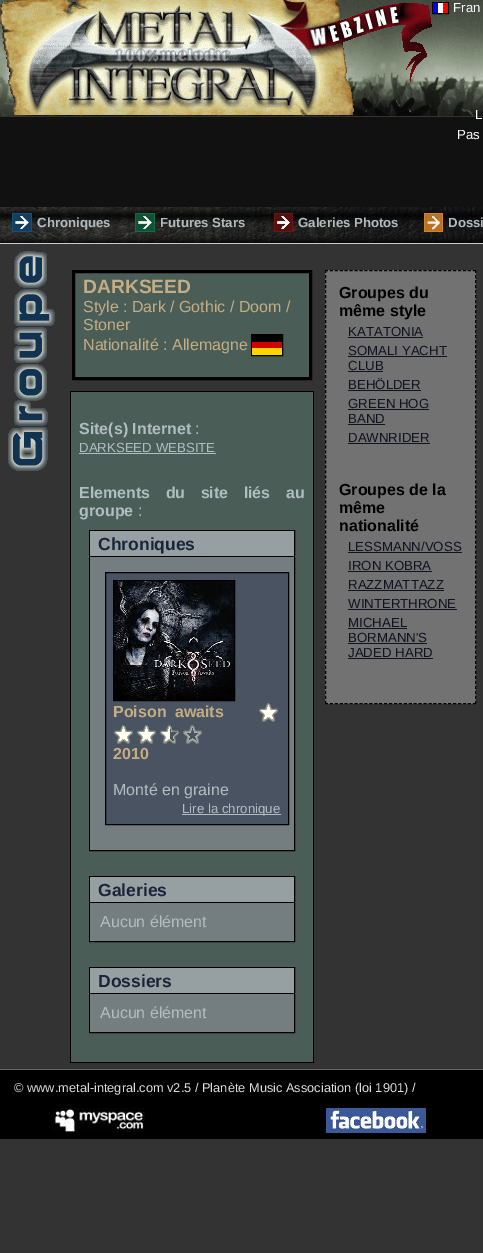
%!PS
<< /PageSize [483 1253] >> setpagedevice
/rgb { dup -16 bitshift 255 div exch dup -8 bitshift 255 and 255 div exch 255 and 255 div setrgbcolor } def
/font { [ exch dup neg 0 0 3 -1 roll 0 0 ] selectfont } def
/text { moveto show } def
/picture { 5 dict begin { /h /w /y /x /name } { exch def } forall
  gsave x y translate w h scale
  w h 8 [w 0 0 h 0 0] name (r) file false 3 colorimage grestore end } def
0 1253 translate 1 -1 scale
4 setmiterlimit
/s1 { /LiberationSans-Regular 13.25 font 16#FFFFFF rgb } def
/s2 { /LiberationSans-Bold 13.25 font 16#B2BDC1 rgb } def
/s3 { /LiberationSans-Bold 19.25 font 16#C4AD84 rgb } def
/s4 { /LiberationSans-Regular 16 font 16#C4AD84 rgb } def
/s5 { /LiberationSans-Bold 16 font 16#000000 rgb } def
/s6 { /LiberationSans-Regular 13.25 font 16#101220 rgb } def
/s7 { /LiberationSans-Bold 16 font 16#B2BDC1 rgb } def
/s8 { /LiberationSans-Regular 16 font 16#B2BDC1 rgb } def
/s9 { /LiberationSans-Regular 13.25 font 16#B2BDC1 rgb } def
/s10 { /LiberationSans-Bold 17.5 font 16#1B2539 rgb } def
/s11 { /LiberationSans-Bold 16 font 16#C4AD84 rgb } def
/s12 { /LiberationSans-Regular 12.8 font 16#DEDEDE rgb } def
16#333333 rgb
0 0 483 1253 rectfill
16#111111 rgb
0 117 483 90 rectfill
(pic1.raw) 0 0 483 117 picture
(pic2.raw) 0 0 432 115 picture
16#000000 rgb
432.5 2.5 16 11 rectstroke
(pic3.raw) 433 3 15 10 picture
s1
(Fran) 453 12 text
(L) 475 119 text
(Pas) 457 139 text
(pic4.raw) 0 207 483 36 picture
16#CCCCCC rgb
0 243 483 1 rectfill
(pic5.raw) 12 213 20 19 picture
s2
(Chroniques) 37 227 text
(pic6.raw) 135 213 20 19 picture
(Futures Stars) 160 227 text
(pic7.raw) 274 213 19 19 picture
(Galeries Photos) 298 227 text
(pic8.raw) 424 213 19 19 picture
(Dossi) 448 227 text
(pic9.raw) 8 251 47 220 picture
16#4A5D57 rgb
73.5 271.5 moveto 310.5 271.5 lineto 310.5 378.5 lineto 73.5 378.5 lineto closepath gsave fill grestore
16#000000 rgb
3 setlinewidth
stroke
s3
(DARKSEED) 83 293 text
s4
(Style : Dark / Gothic / Doom /) 83 312 text
(Stoner) 83 330 text
16#000000 rgb
1 setlinewidth
251.5 334.5 31 21 rectstroke
s4
(Nationalité : Allemagne) 83 350 text
(pic10.raw) 252 335 30 20 picture
16#727272 rgb
325 270 151 434 rectfill
16#000000 rgb
[3 1.93] 0 setdash
325 270.5 moveto 476 270.5 lineto stroke
[3 2.01] 0 setdash
475.5 270 moveto 475.5 704 lineto stroke
[3 1.93] 0 setdash
325 703.5 moveto 476 703.5 lineto stroke
[3 2.01] 0 setdash
325.5 270 moveto 325.5 704 lineto stroke
s5
(Groupes du) 339 298 text
(même style) 339 316 text
s6
(KATATONIA) 348 336 text
348 337 75 1 rectfill
(SOMALI YACHT) 348 355 text
348 356 99 1 rectfill
(CLUB) 348 370 text
348 371 35 1 rectfill
(BEHÖLDER) 348 389 text
348 390 73 1 rectfill
(GREEN HOG) 348 408 text
348 409 81 1 rectfill
(BAND) 348 423 text
348 424 37 1 rectfill
(DAWNRIDER) 348 442 text
348 443 82 1 rectfill
s5
(Groupes de la) 339 495 text
(même) 339 513 text
(nationalité) 339 531 text
s6
(LESSMANN/VOSS) 348 551 text
348 552 114 1 rectfill
(IRON KOBRA) 348 570 text
348 571 84 1 rectfill
(RAZZMATTAZZ) 348 589 text
348 590 96 1 rectfill
(WINTERTHRONE) 348 608 text
348 609 109 1 rectfill
(MICHAEL) 348 627 text
348 628 59 1 rectfill
(BORMANN'S) 348 642 text
348 643 79 1 rectfill
(JADED HARD) 348 657 text
348 658 85 1 rectfill
16#4A5D57 rgb
71 392 242 670 rectfill
16#000000 rgb
70 391 244 1 rectfill
313 391 1 672 rectfill
70 1062 244 1 rectfill
70 391 1 672 rectfill
s7
(Site\(s\) Internet) 79 434 text
s8
(:) 195 434 text
s9
(DARKSEED WEBSITE) 79 452 text
79 453 137 1 rectfill
/LiberationSans-Bold 16 font
79 498 moveto 11 0 32 (Elements du site liés au) widthshow
(groupe) 79 516 text
s8
(:) 138 516 text
16#000000 rgb
[] 0 setdash
89.5 530.5 205 320 rectstroke
16#96A0A3 rgb
90 531 204 25 rectfill
16#000000 rgb
90 556 204 1 rectfill
s10
(Chroniques) 98 550 text
16#747E80 rgb
90 557 204 293 rectfill
16#4A5361 rgb
105.5 572.5 moveto 288.5 572.5 lineto 288.5 824.5 lineto 105.5 824.5 lineto closepath gsave fill grestore
16#000000 rgb
stroke
113.5 580.5 121 120 rectstroke
(pic11.raw) 114 581 120 119 picture
/LiberationSans-Bold 16 font
16#C4AD84 rgb
113 717 moveto 4 0 32 (Poison awaits) widthshow
(pic12.raw) 259 703 19 19 picture
(pic12.raw) 114 725 19 19 picture
(pic12.raw) 137 725 19 19 picture
(pic13.raw) 160 725 19 19 picture
(pic14.raw) 183 725 19 19 picture
(2010) 113 759 text
s8
(Monté en graine) 113 795 text
182 814 99 1 rectfill
s9
(Lire la chronique) 182 813 text
16#000000 rgb
89.5 876.5 205 65 rectstroke
16#96A0A3 rgb
90 877 204 25 rectfill
16#000000 rgb
90 902 204 1 rectfill
s10
(Galeries) 98 896 text
16#747E80 rgb
90 903 204 38 rectfill
s8
(Aucun élément) 100 927 text
16#000000 rgb
89.5 967.5 205 65 rectstroke
16#96A0A3 rgb
90 968 204 25 rectfill
16#000000 rgb
90 993 204 1 rectfill
s10
(Dossiers) 98 987 text
16#747E80 rgb
90 994 204 38 rectfill
s8
(Aucun élément) 100 1018 text
16#000000 rgb
0 1070 483 69 rectfill
16#666666 rgb
0 1069 483 1 rectfill
s12
(© www.metal-integral.com v2.5 / Planète Music Association \(loi 1901\) /) 14 1092 text
(pic15.raw) 53 1108 92 24 picture
(pic16.raw) 326 1108 100 25 picture
showpage
